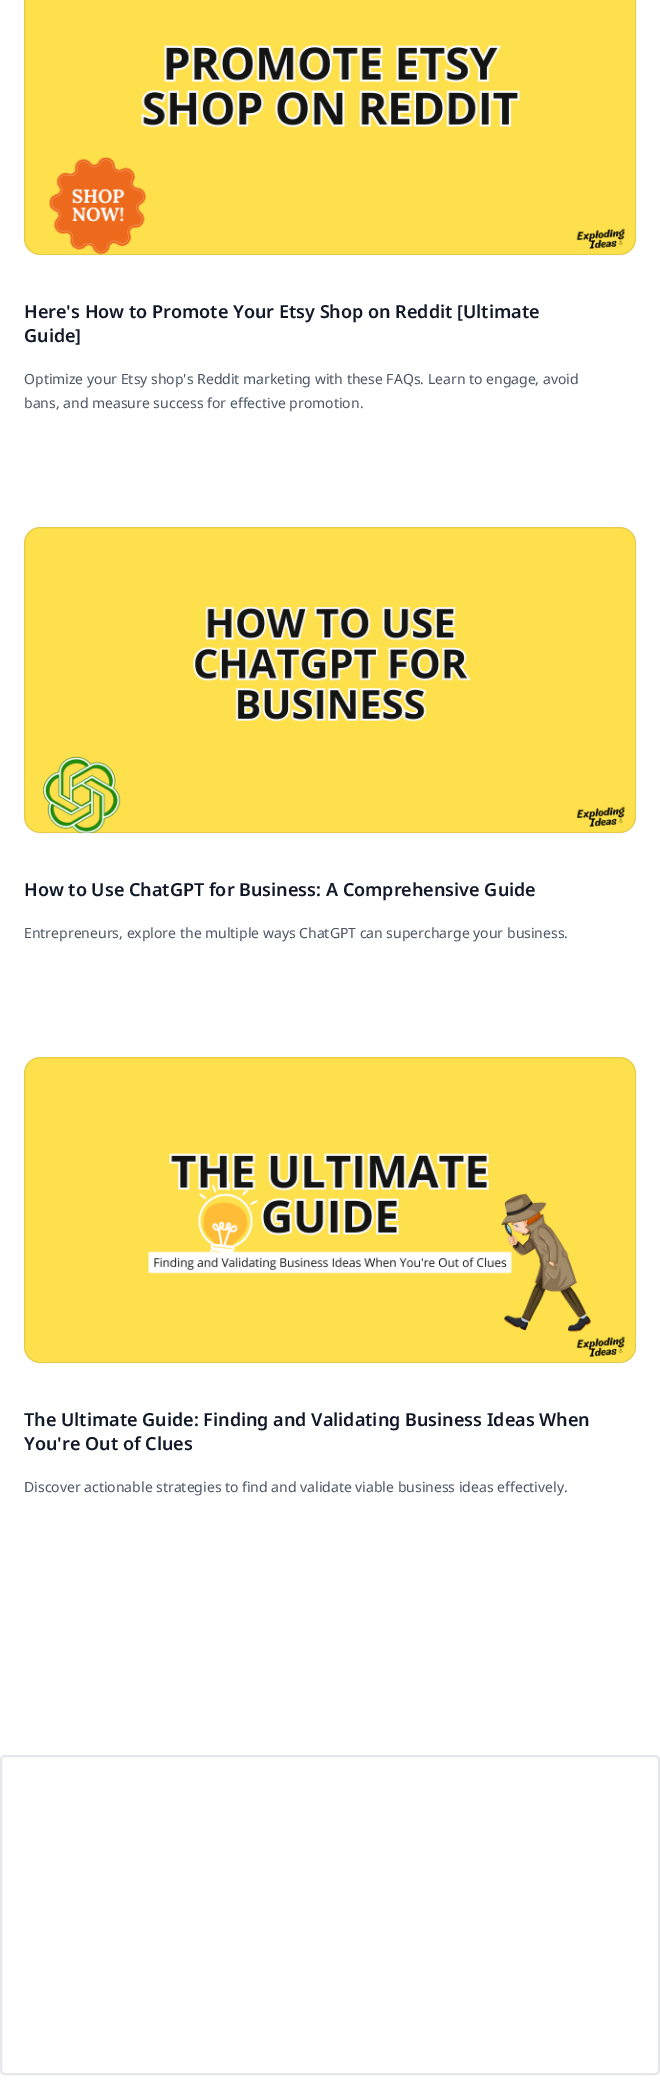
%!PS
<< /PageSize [660 2096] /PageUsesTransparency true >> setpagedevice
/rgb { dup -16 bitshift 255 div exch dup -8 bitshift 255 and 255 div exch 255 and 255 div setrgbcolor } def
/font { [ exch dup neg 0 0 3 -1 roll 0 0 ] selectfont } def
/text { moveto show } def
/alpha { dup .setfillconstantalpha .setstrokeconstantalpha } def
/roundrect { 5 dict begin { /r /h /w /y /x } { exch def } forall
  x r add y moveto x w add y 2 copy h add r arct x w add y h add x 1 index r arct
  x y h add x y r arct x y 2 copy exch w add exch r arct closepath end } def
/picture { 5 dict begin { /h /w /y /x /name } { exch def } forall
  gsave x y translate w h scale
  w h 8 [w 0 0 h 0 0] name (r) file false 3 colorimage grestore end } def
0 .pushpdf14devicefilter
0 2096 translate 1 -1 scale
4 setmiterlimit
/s1 { /NotoSans-SemiBold 18 font 16#111827 rgb } def
/s2 { /NotoSans-Regular 14 font 16#4B5563 rgb } def
16#FFFFFF rgb
0 0 660 2096 rectfill
16#F3F4F6 rgb
24 -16 612 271 16 roundrect fill
(pic1.raw) 24 0 612 255 picture
0.1 alpha
16#111827 rgb
24.5 -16.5 611 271 15.5 roundrect stroke
1 alpha
s1
(Here's How to Promote Your Etsy Shop on Reddit [Ultimate) 24 318 text
(Guide]) 24 342 text
s2
(Optimize your Etsy shop's Reddit marketing with these FAQs. Learn to engage, avoid) 24 384 text
(bans, and measure success for effective promotion.) 24 408 text
16#F3F4F6 rgb
24 527 612 306 16 roundrect fill
(pic2.raw) 24 527 612 306 picture
0.1 alpha
16#111827 rgb
24.5 527.5 611 305 15.5 roundrect stroke
1 alpha
s1
(How to Use ChatGPT for Business: A Comprehensive Guide) 24 896 text
s2
(Entrepreneurs, explore the multiple ways ChatGPT can supercharge your business.) 24 938 text
16#F3F4F6 rgb
24 1057 612 306 16 roundrect fill
(pic3.raw) 24 1057 612 306 picture
0.1 alpha
16#111827 rgb
24.5 1057.5 611 305 15.5 roundrect stroke
1 alpha
s1
(The Ultimate Guide: Finding and Validating Business Ideas When) 24 1426 text
(You're Out of Clues) 24 1450 text
s2
(Discover actionable strategies to find and validate viable business ideas effectively.) 24 1492 text
16#E5E7EB rgb
2 setlinewidth
1 1756 658 318 4 roundrect stroke
.poppdf14devicefilter showpage
